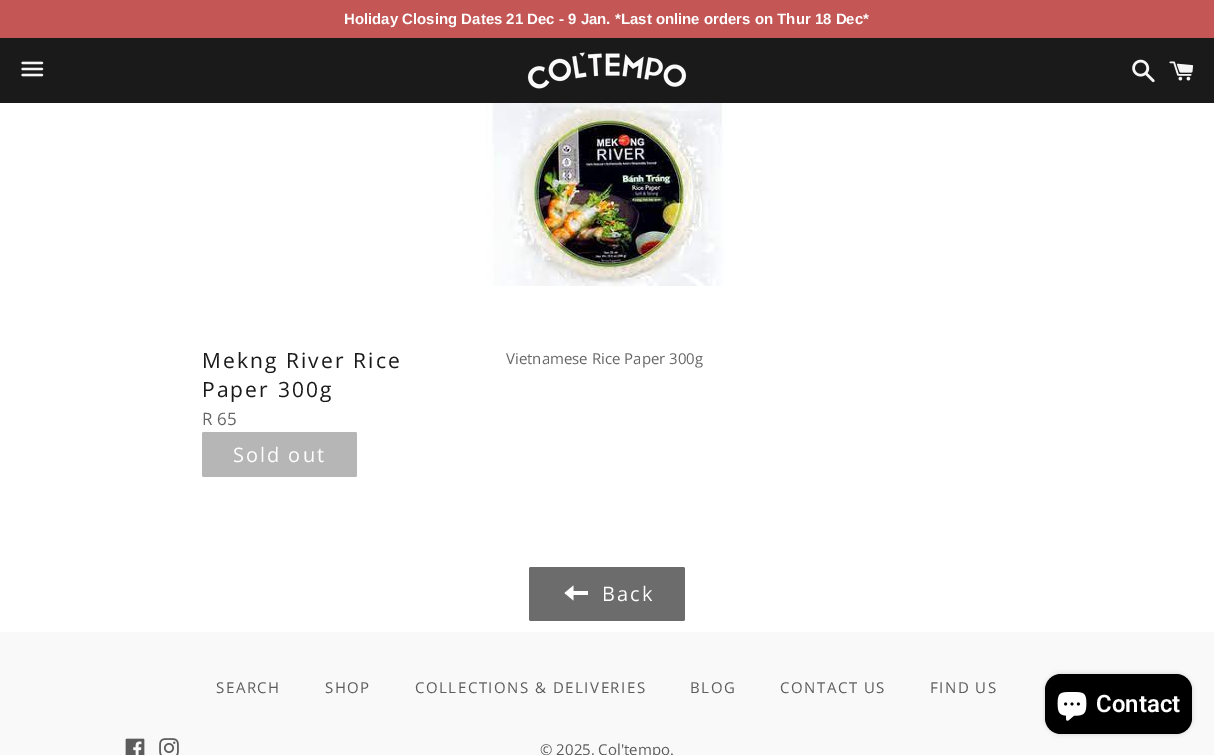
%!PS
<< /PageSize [1214 755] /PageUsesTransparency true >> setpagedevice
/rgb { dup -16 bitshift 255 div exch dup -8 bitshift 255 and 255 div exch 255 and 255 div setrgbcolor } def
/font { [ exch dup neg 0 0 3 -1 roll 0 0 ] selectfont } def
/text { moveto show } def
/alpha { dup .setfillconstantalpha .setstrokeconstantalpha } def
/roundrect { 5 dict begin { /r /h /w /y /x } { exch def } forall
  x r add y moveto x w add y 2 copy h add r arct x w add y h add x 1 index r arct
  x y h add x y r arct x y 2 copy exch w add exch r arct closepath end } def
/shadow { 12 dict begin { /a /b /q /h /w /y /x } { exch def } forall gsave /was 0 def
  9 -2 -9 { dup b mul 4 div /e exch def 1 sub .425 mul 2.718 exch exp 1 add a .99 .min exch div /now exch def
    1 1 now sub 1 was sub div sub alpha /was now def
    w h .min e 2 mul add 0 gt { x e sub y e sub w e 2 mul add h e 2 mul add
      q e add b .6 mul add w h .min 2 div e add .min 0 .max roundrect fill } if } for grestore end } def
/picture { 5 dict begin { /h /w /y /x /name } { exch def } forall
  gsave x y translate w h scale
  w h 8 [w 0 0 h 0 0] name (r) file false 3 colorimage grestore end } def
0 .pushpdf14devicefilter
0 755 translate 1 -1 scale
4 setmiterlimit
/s1 { /LiberationSans-Bold 15 font 16#FFFFFF rgb } def
/s2 { /OpenSans-Regular 17 font 16#666666 rgb } def
/s3 { /OpenSans-Regular 15 font 16#666666 rgb } def
/s4 { /OpenSans-Regular 15 font 16#5C5C5C rgb } def
/s5 { /Roboto-SemiBold 24 font 16#FFFFFF rgb } def
16#FFFFFF rgb
0 0 1214 755 rectfill
16#C45656 rgb
0 0 1214 38 rectfill
s1
(Holiday Closing Dates 21 Dec - 9 Jan. *Last online orders on Thur 18 Dec*) 344 24 text
16#1A1A1A rgb
0 38 1214 65 rectfill
(pic1.raw) 21 61 23 16 picture
(pic2.raw) 527 52 160 37 picture
(pic3.raw) 1132 59 23 24 picture
(pic4.raw) 1169 61 25 20 picture
(pic5.raw) 486 103 240 183 picture
/OpenSans-Regular 21 font
202 368 moveto 2.1 0 (Mekng River Rice) ashow
202 397 moveto 2.1 0 (Paper 300g) ashow
s2
(R 65) 202 425 text
16#B6B6B6 rgb
202 432 155 45 2 roundrect fill
/OpenSans-Regular 20 font
16#FFFFFF rgb
233 462 moveto 2 0 (Sold out) ashow
s3
(Vietnamese Rice Paper 300g) 506 364 text
16#6C6C6C rgb
529 567 156 54 2 roundrect fill
16#FFFFFF rgb
573.5 591 moveto 573.5 585.5 lineto 564.5 593 lineto 573.5 600.5 lineto 573.5 595 lineto 588 595 lineto 588 591 lineto closepath fill
/OpenSans-Regular 20 font
602 601 moveto 2 0 (Back) ashow
16#F9F9F9 rgb
0 632 1214 123 rectfill
/OpenSans-Regular 15 font
16#5C5C5C rgb
216 693 moveto 1.5 0 (SEARCH) ashow
325 693 moveto 1.5 0 (SHOP) ashow
415 693 moveto 1.5 0 (COLLECTIONS & DELIVERIES) ashow
690 693 moveto 1.5 0 (BLOG) ashow
780 693 moveto 1.5 0 (CONTACT US) ashow
930 693 moveto 1.5 0 (FIND US) ashow
(pic6.raw) 125 738 20 17 picture
(pic7.raw) 159 738 20 17 picture
(© 2025, Col'tempo.) 540 755 text
16#000000 rgb
1045 674 147 60 16 2.5 0.15 shadow
1045 674 147 60 16 roundrect fill
(pic8.raw) 1057 692 30 29 picture
s5
(Contact) 1096 712 text
.poppdf14devicefilter showpage
